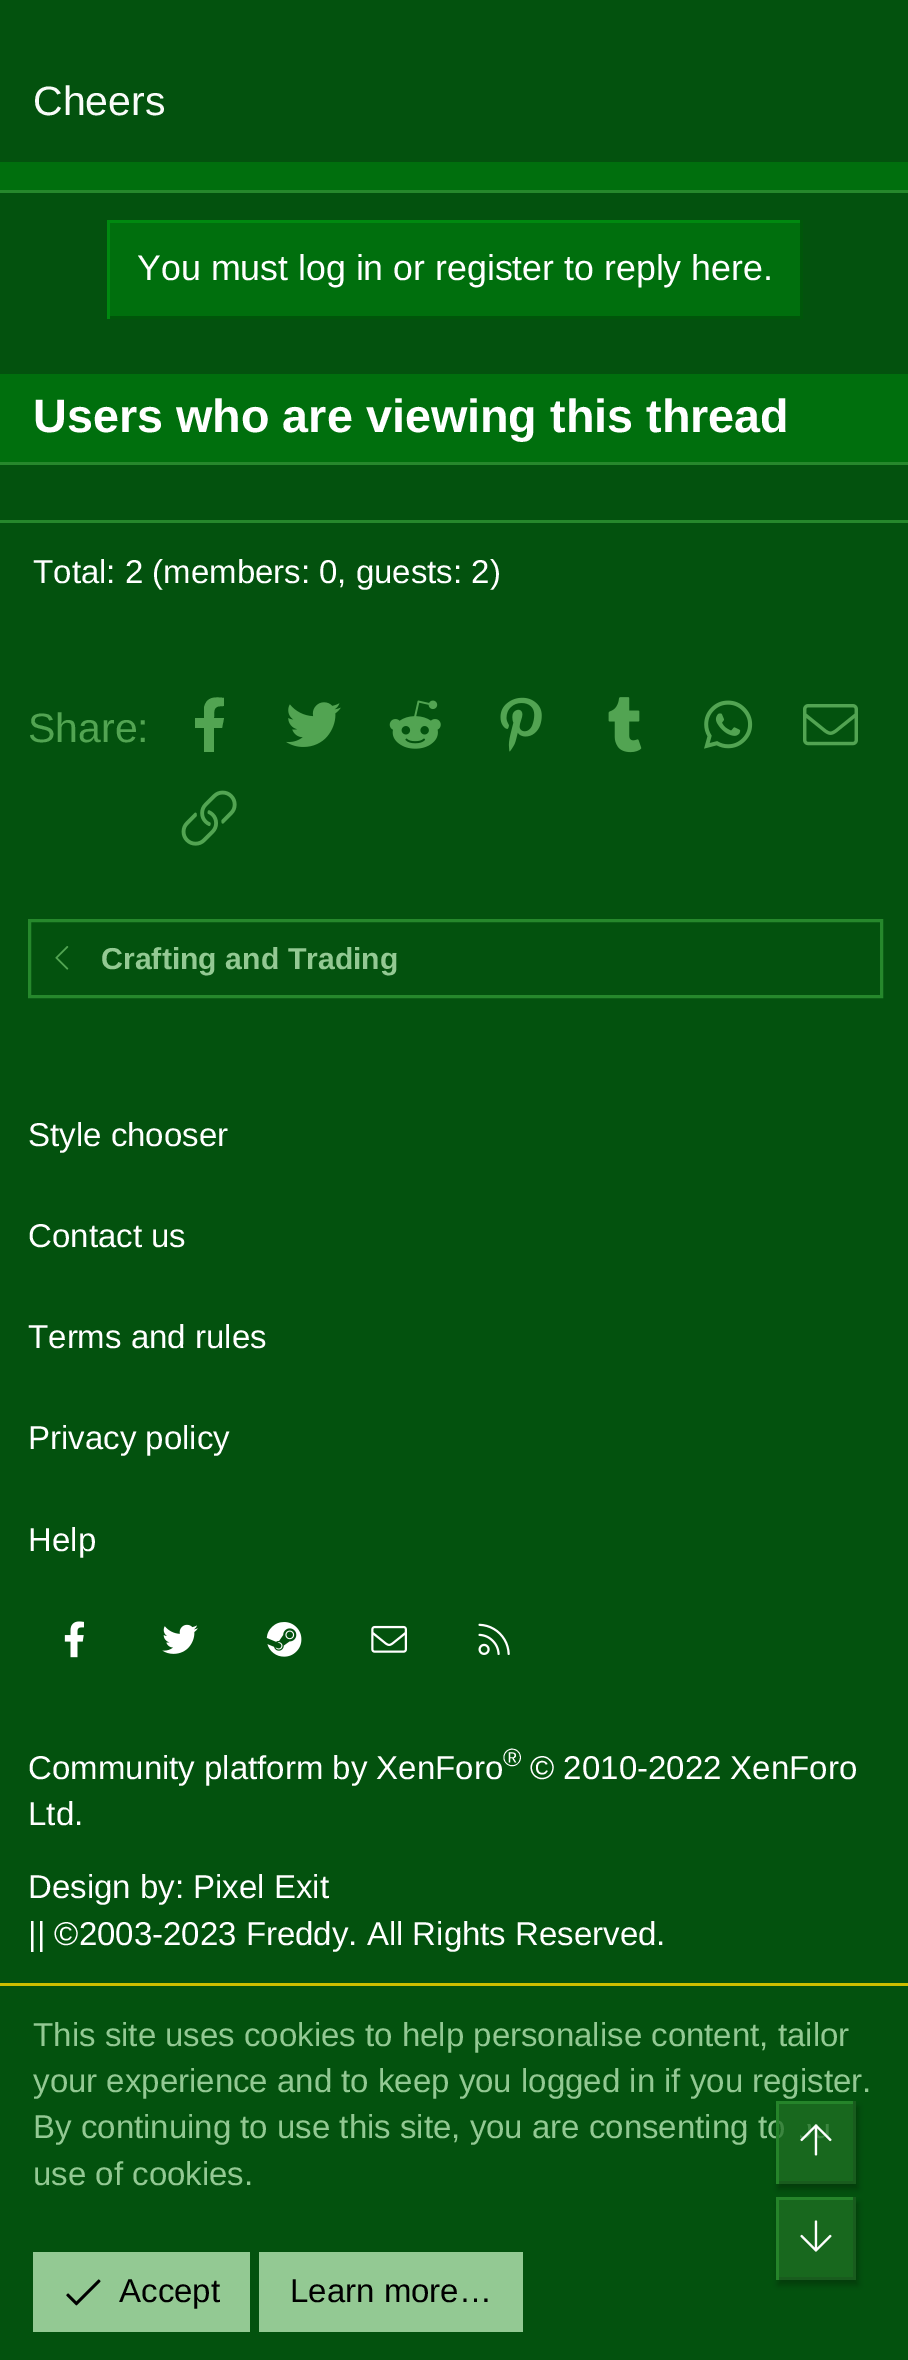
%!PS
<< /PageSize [908 2360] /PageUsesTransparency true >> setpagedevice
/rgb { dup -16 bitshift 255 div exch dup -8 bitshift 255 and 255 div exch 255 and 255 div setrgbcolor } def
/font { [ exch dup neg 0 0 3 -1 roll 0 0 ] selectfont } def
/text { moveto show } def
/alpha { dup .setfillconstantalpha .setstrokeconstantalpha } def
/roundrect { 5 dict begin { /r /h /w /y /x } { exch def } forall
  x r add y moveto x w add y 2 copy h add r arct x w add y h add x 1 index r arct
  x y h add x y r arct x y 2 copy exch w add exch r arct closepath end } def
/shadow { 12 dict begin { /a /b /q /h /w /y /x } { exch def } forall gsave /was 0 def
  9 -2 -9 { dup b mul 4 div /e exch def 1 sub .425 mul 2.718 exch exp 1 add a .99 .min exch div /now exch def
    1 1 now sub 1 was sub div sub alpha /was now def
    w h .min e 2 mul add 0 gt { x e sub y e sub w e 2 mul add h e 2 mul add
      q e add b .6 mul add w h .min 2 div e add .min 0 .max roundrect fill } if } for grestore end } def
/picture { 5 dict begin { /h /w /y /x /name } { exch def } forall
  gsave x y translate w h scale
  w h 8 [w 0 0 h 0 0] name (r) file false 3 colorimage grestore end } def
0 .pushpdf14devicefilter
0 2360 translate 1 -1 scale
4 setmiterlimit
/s1 { /LiberationSans-Regular 41 font 16#F9FCF9 rgb } def
/s2 { /LiberationSans-Regular 35.75 font 16#FFFFFF rgb } def
/s3 { /LiberationSans-Bold 46.75 font 16#FFFFFF rgb } def
/s4 { /LiberationSans-Regular 33 font 16#FFFFFF rgb } def
/s5 { /LiberationSans-Regular 41 font 16#52A452 rgb } def
/s6 { /LiberationSans-Bold 30.25 font 16#93C993 rgb } def
/s7 { /LiberationSans-Regular 25 font 16#FFFFFF rgb } def
/s8 { /LiberationSans-Regular 33 font 16#93C993 rgb } def
/s9 { /LiberationSans-Regular 33 font 16#000000 rgb } def
16#03520E rgb
0 0 908 2360 rectfill
16#006F0D rgb
0 162 908 28 rectfill
16#26882C rgb
0 190 908 3 rectfill
s1
(Cheers) 33 115 text
16#006F0D rgb
110 223 690 93 rectfill
16#008910 rgb
107 220 696 3 rectfill
16#00560A rgb
800 220 3 99 rectfill
107 316 696 3 rectfill
16#008910 rgb
107 220 3 99 rectfill
s2
(You must log in or register to reply here.) 137 280 text
16#006F0D rgb
0 374 908 88 rectfill
16#26882C rgb
0 462 908 3 rectfill
s3
(Users who are viewing this thread) 33 432 text
16#26882C rgb
0 520 908 3 rectfill
s4
(Total: 2 \(members: 0, guests: 2\)) 33 583 text
s5
(Share:) 28 742 text
222 728 moveto 214 728 lineto 214 752 lineto 204 752 lineto 204 728 lineto 195 728 lineto 195 718 lineto 204 718 lineto 204 708 lineto 206 696 216 697 224 698 curveto 224 706 lineto 214 706 214 708 214 718 curveto 224 718 lineto closepath fill
(pic1.raw) 286 702 55 45 picture
(pic2.raw) 389 700 52 49 picture
(pic3.raw) 500 697 42 55 picture
(pic4.raw) 608 697 34 56 picture
(pic5.raw) 704 700 49 49 picture
(pic6.raw) 803 704 55 42 picture
(pic7.raw) 181 790 56 56 picture
16#26882C rgb
3 setlinewidth
29.5 920.5 852 76 rectstroke
(pic8.raw) 55 946 14 24 picture
s6
(Crafting and Trading) 101 969 text
s4
(Style chooser) 28 1146 text
(Contact us) 28 1247 text
(Terms and rules) 28 1348 text
(Privacy policy) 28 1449 text
(Help) 28 1551 text
(pic9.raw) 64 1621 20 37 picture
(pic10.raw) 162 1624 36 30 picture
(pic11.raw) 266 1622 36 35 picture
(pic12.raw) 371 1625 36 28 picture
(pic13.raw) 478 1623 32 32 picture
(Community platform by XenForo) 28 1779 text
s7
(®) 503 1766 text
s4
(© 2010-2022 XenForo) 530 1779 text
(Ltd.) 28 1825 text
(Design by: Pixel Exit) 28 1898 text
(|| ©2003-2023 Freddy. All Rights Reserved.) 28 1945 text
16#CCBE00 rgb
0 1983 908 3 rectfill
s8
(This site uses cookies to help personalise content, tailor) 33 2046 text
(your experience and to keep you logged in if you register.) 33 2092 text
(By continuing to use this site, you are consenting to) 33 2138 text
(use of cookies.) 33 2185 text
33 2252 217 80 rectfill
(pic14.raw) 66 2279 35 27 picture
s9
(Accept) 119 2302 text
16#93C993 rgb
259 2252 264 80 rectfill
s9
(Learn more…) 290 2302 text
gsave
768 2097 moveto 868 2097 lineto 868 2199 lineto 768 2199 lineto closepath 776 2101 moveto 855 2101 lineto 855 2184 lineto 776 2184 lineto closepath eoclip newpath
778 2107 80 82 0 3 0.25 shadow
grestore
0.75 alpha
16#1F7024 rgb
779 2104 74 77 rectfill
1 alpha
16#25842A rgb
776 2101 79 3 rectfill
16#195C1E rgb
853 2101 3 83 rectfill
776 2181 79 3 rectfill
16#25842A rgb
776 2101 3 83 rectfill
(pic15.raw) 800 2124 32 32 picture
gsave
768 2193 moveto 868 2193 lineto 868 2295 lineto 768 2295 lineto closepath 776 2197 moveto 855 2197 lineto 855 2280 lineto 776 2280 lineto closepath eoclip newpath
16#000000 rgb
778 2203 80 82 0 3 0.25 shadow
grestore
0.75 alpha
16#1F7024 rgb
779 2200 74 77 rectfill
1 alpha
16#25842A rgb
776 2197 79 3 rectfill
16#195C1E rgb
853 2197 3 83 rectfill
776 2277 79 3 rectfill
16#25842A rgb
776 2197 3 83 rectfill
(pic16.raw) 800 2220 32 32 picture
.poppdf14devicefilter showpage
